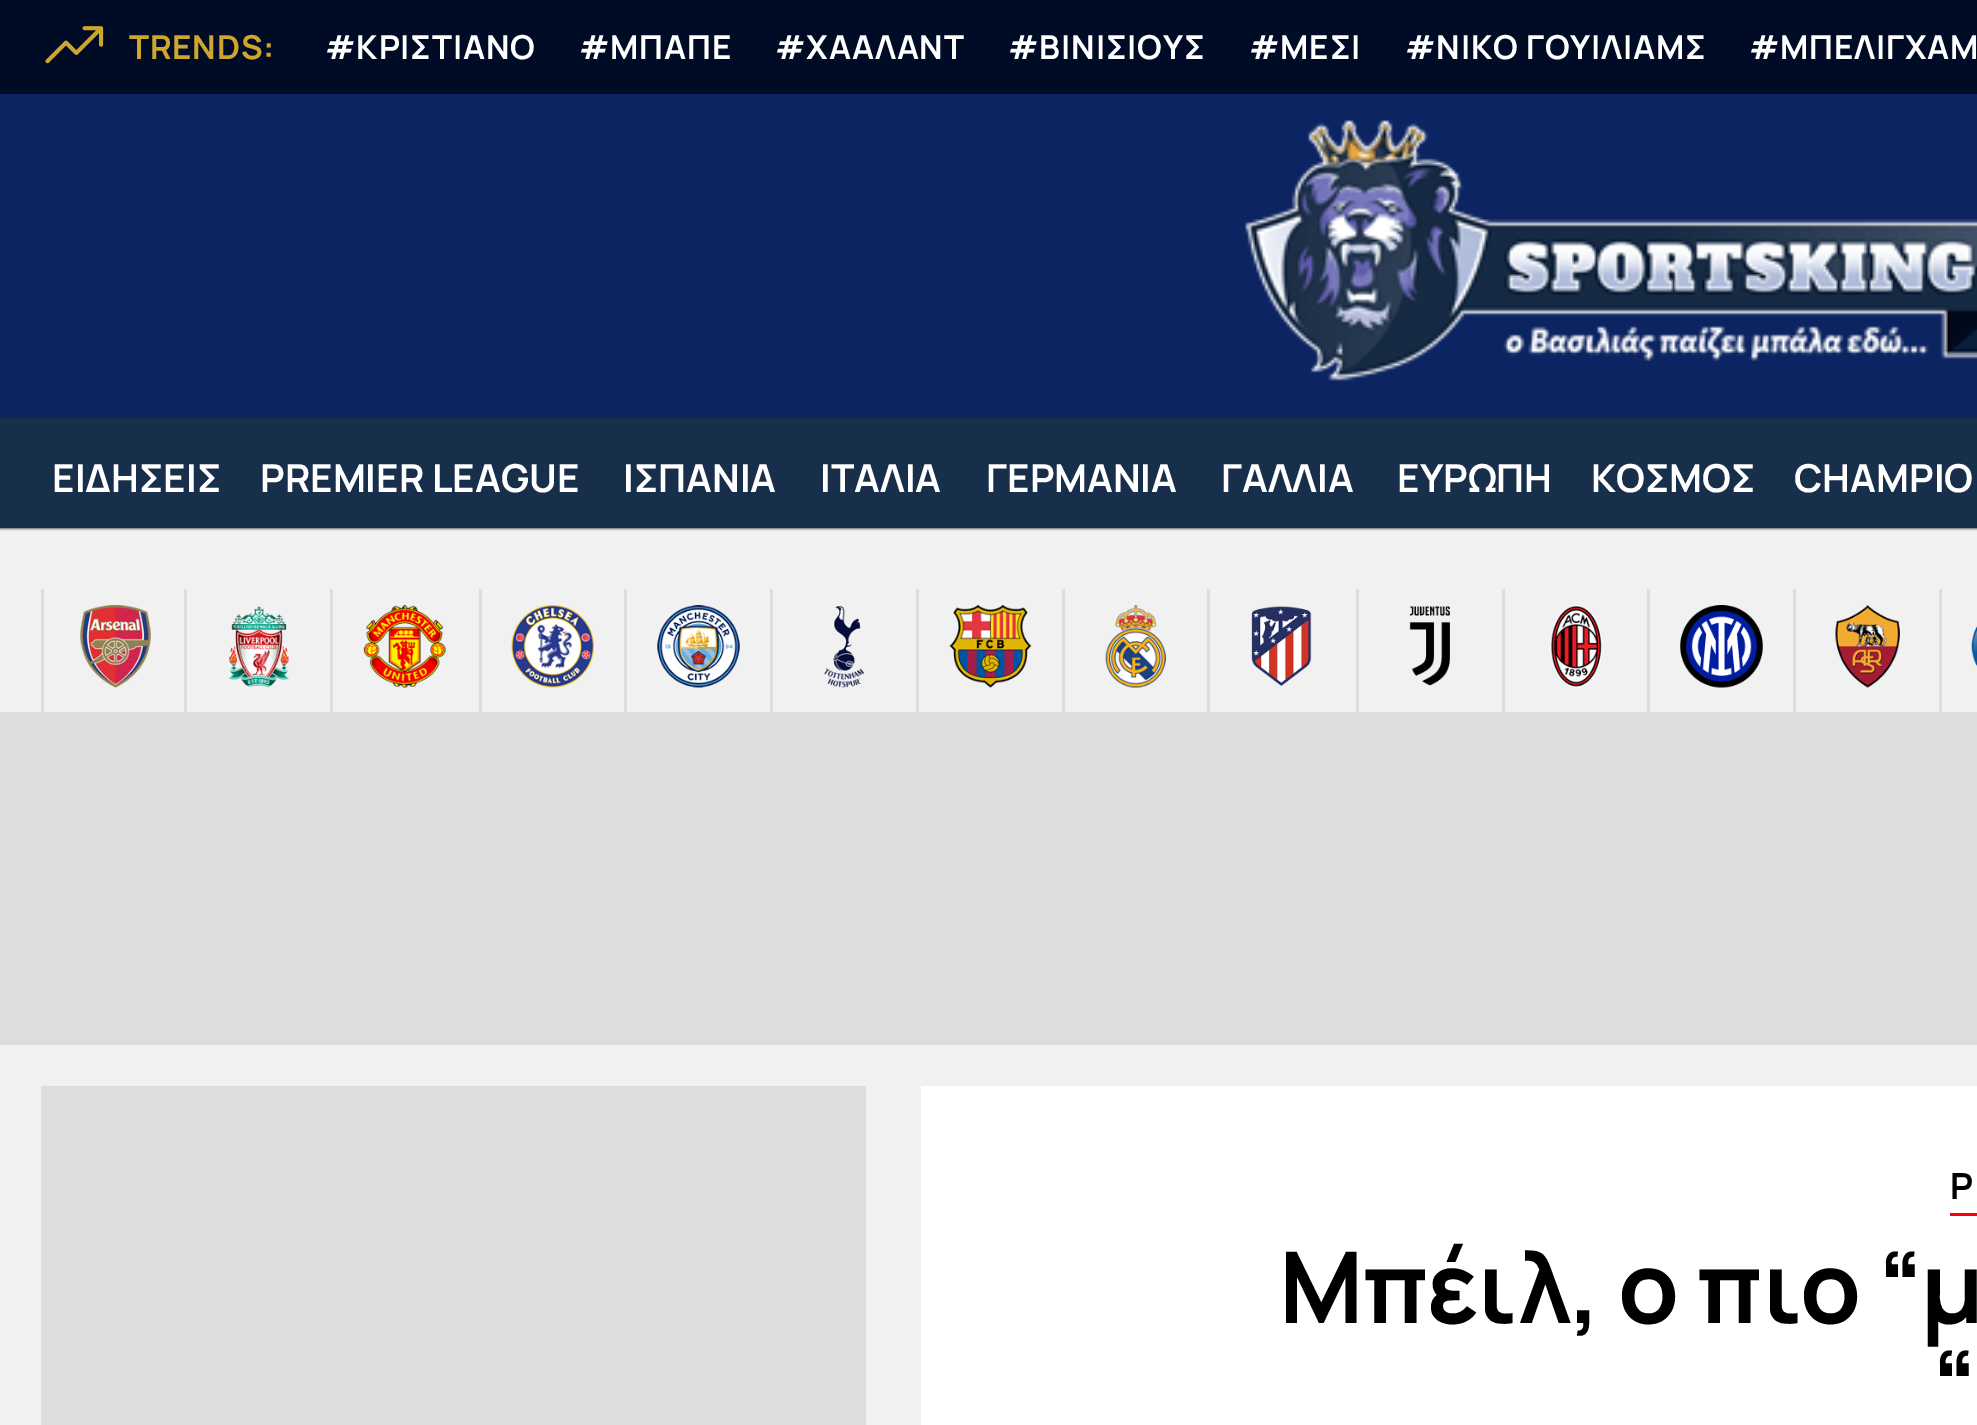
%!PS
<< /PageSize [1977 1425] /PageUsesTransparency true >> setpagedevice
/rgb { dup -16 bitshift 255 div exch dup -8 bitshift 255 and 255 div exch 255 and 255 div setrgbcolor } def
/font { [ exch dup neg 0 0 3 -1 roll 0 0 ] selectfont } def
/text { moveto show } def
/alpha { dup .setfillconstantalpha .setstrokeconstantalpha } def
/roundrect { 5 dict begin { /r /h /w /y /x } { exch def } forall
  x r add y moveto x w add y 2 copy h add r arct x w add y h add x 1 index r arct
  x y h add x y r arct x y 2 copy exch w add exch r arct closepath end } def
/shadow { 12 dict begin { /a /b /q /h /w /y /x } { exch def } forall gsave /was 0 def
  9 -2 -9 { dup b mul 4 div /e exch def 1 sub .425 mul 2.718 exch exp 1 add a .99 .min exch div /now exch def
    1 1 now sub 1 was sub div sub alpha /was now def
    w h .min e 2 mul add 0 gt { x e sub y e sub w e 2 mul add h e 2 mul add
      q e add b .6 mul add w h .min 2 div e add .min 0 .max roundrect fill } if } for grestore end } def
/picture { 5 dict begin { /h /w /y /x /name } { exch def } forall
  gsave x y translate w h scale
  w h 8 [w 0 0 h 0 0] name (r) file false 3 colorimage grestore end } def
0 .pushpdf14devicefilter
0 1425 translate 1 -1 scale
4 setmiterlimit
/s1 { /Manrope-Bold 38.5 font 16#FFFFFF rgb } def
/s2 { /Manrope-Bold 36 font 16#000000 rgb } def
16#F1F1F1 rgb
0 0 1977 1425 rectfill
16#000B26 rgb
0 0 1977 94 rectfill
(pic1.raw) 45 26 59 38 picture
/Manrope-Bold 33 font
16#CEA52D rgb
129 59 moveto 0.75 0 (TRENDS:) ashow
16#FFFFFF rgb
325 59 moveto 0.75 0 (#ΚΡΙΣΤΙΑΝΟ) ashow
579 59 moveto 0.75 0 (#ΜΠΑΠΕ) ashow
775 59 moveto 0.75 0 (#ΧΑΑΛΑΝΤ) ashow
1008 59 moveto 0.75 0 (#ΒΙΝΙΣΙΟΥΣ) ashow
1249 59 moveto 0.75 0 (#ΜΕΣΙ) ashow
1405 59 moveto 0.75 0 (#ΝΙΚΟ ΓΟΥΙΛΙΑΜΣ) ashow
1749 59 moveto 0.75 0 (#ΜΠΕΛΙΓΧΑΜ) ashow
16#000000 rgb
-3 418 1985 110 0 1.5 1 shadow
16#0C2461 rgb
0 94 1977 324 rectfill
(pic2.raw) 1245 120 732 261 picture
16#182F4C rgb
0 418 1977 110 rectfill
s1
(ΕΙΔΗΣΕΙΣ) 52 492 text
(PREMIER LEAGUE) 260 492 text
(IΣΠΑΝΙΑ) 623 492 text
(ΙΤΑΛΙΑ) 820 492 text
(ΓΕΡΜΑΝΙΑ) 986 492 text
(ΓΑΛΛΙΑ) 1221 492 text
(ΕΥΡΩΠΗ) 1397 492 text
(ΚΟΣΜΟΣ) 1591 492 text
(CHAMPIO) 1794 492 text
16#DDDDDD rgb
0 712 1977 333 rectfill
184 589 3 123 rectfill
41 589 3 123 rectfill
(pic3.raw) 80 605 71 83 picture
330 589 3 123 rectfill
(pic4.raw) 228 606 62 82 picture
479 589 3 123 rectfill
(pic5.raw) 363 605 83 83 picture
624 589 3 123 rectfill
(pic6.raw) 511 605 83 83 picture
770 589 3 123 rectfill
(pic7.raw) 657 605 83 83 picture
916 589 3 123 rectfill
(pic8.raw) 824 606 41 82 picture
1062 589 3 123 rectfill
(pic9.raw) 949 605 83 83 picture
1207 589 3 123 rectfill
(pic10.raw) 1105 605 61 83 picture
1356 589 3 123 rectfill
(pic11.raw) 1251 606 61 80 picture
1502 589 3 123 rectfill
(pic12.raw) 1409 606 41 80 picture
1647 589 3 123 rectfill
(pic13.raw) 1550 605 53 83 picture
1793 589 3 123 rectfill
(pic14.raw) 1680 605 83 83 picture
1939 589 3 123 rectfill
(pic15.raw) 1835 605 65 83 picture
(pic16.raw) 1971 626 6 40 picture
41 1086 825 339 rectfill
16#FFFFFF rgb
921 1086 1056 339 rectfill
16#FF0000 rgb
1950 1213 27 3 rectfill
s2
(Ρ) 1950 1199 text
/Manrope-Bold 99 font
1279 1323 moveto -1.5 0 (Μπέιλ, ο πιο “μ) ashow
1932 1422 moveto -1.5 0 (“) ashow
.poppdf14devicefilter showpage
